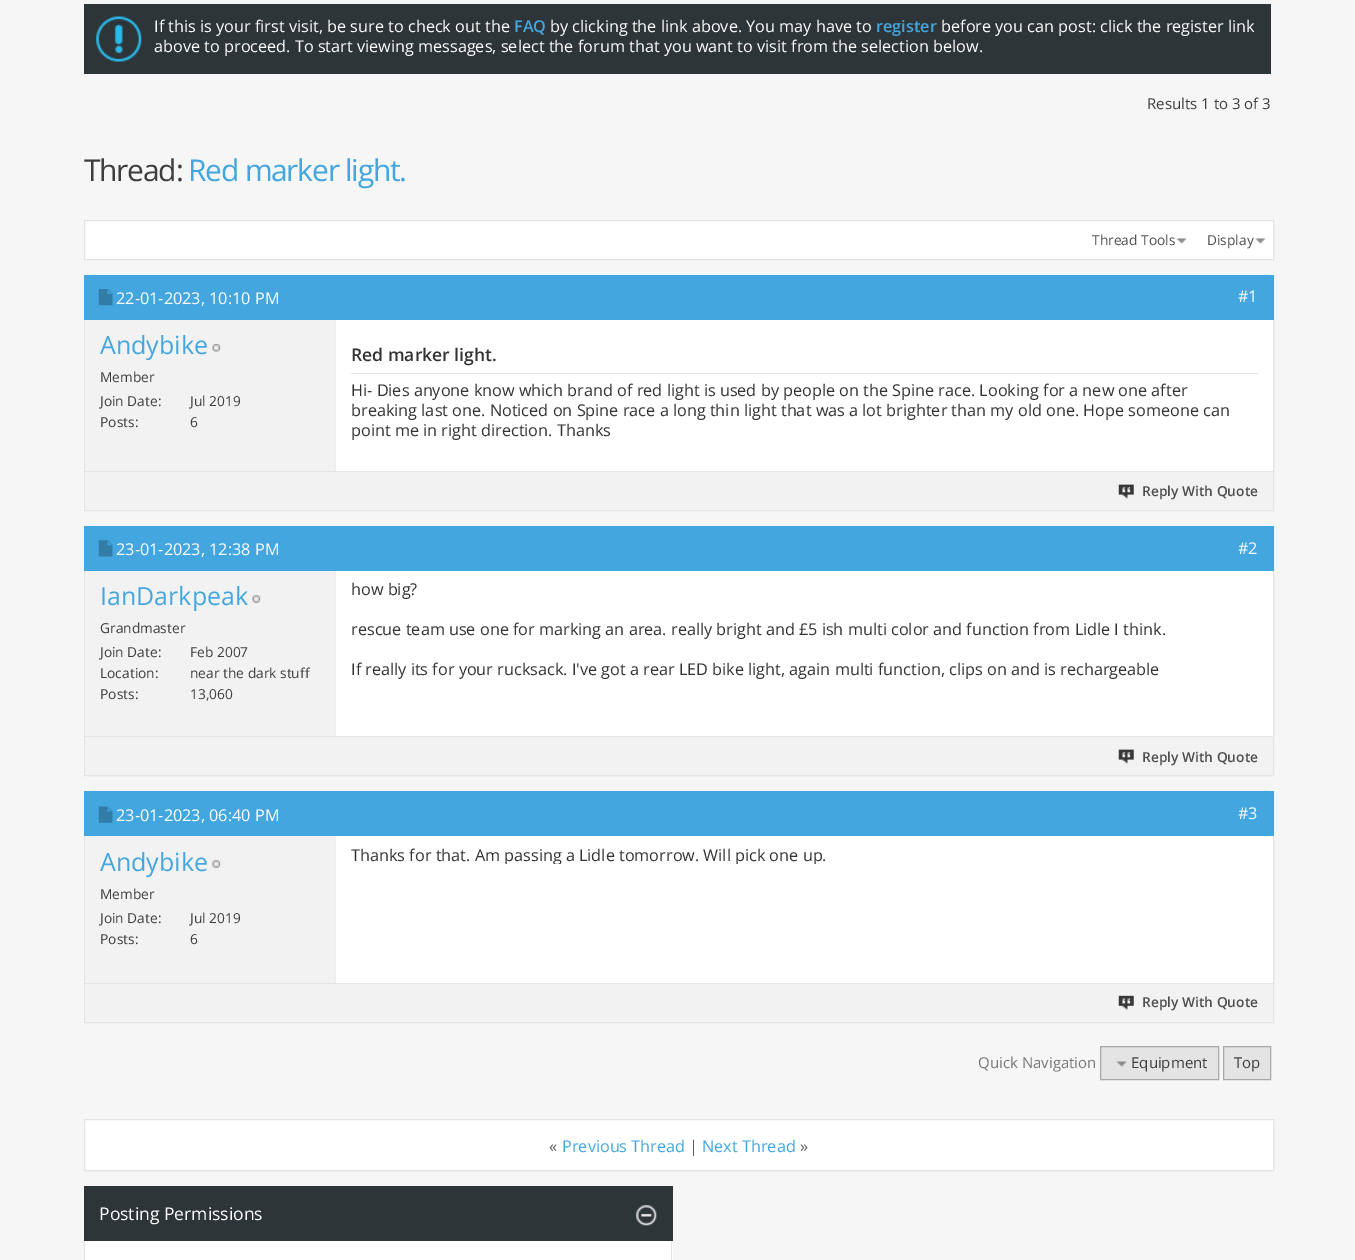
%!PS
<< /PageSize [1355 1260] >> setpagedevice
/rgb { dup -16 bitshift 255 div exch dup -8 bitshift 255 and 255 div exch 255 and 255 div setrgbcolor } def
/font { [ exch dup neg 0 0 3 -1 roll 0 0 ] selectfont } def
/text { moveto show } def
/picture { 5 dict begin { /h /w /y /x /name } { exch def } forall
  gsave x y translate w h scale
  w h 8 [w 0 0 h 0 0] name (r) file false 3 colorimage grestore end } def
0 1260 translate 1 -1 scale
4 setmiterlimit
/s1 { /OpenSans-Regular 16.25 font 16#FFFFFF rgb } def
/s2 { /OpenSans-SemiBold 16.25 font 16#43A6DF rgb } def
/s3 { /OpenSans-Regular 15 font 16#3E3E3E rgb } def
/s4 { /OpenSans-Regular 13.75 font 16#4E4E4E rgb } def
/s5 { /OpenSans-Regular 25 font 16#43A6DF rgb } def
/s6 { /OpenSans-Regular 13.75 font 16#3E3E3E rgb } def
/s7 { /OpenSans-SemiBold 17.5 font 16#333333 rgb } def
/s8 { /OpenSans-Regular 16.25 font 16#333333 rgb } def
/s9 { /OpenSans-SemiBold 13.75 font 16#4E4E4E rgb } def
/s10 { /OpenSans-Regular 15 font 16#777777 rgb } def
/s11 { /OpenSans-Regular 16.25 font 16#5D5D5D rgb } def
/s12 { /OpenSans-Regular 16.25 font 16#43A6DF rgb } def
/s13 { /OpenSans-Regular 17.5 font 16#FFFFFF rgb } def
16#F6F6F6 rgb
0 0 1355 1260 rectfill
16#2E3539 rgb
84 4 1187 70 rectfill
(pic1.raw) 96 16 46 46 picture
s1
(If this is your first visit, be sure to check out the) 154 32 text
s2
(FAQ) 514 32 text
s1
(by clicking the link above. You may have to) 550 32 text
s2
(register) 876 32 text
s1
(before you can post: click the register link) 941 32 text
(above to proceed. To start viewing messages, select the forum that you want to visit from the selection below.) 154 52 text
s3
(Results 1 to 3 of 3) 1147 109 text
/OpenSans-Regular 30 font
84 181 moveto -1.25 0 (Thread:) ashow
16#43A6DF rgb
188 181 moveto -1.25 0 (Red marker light.) ashow
16#FFFFFF rgb
84.5 220.5 moveto 1273.5 220.5 lineto 1273.5 259.5 lineto 84.5 259.5 lineto closepath gsave fill grestore
16#E4E4E4 rgb
stroke
(pic2.raw) 1176 238 11 6 picture
s4
(Thread Tools) 1092 245 text
(pic3.raw) 1255 238 11 6 picture
(Display) 1207 245 text
16#E4E4E4 rgb
84.5 275.5 1189 235 rectstroke
16#43A6DF rgb
84 275 1190 45 rectfill
(pic4.raw) 98 289 15 17 picture
s1
(22-01-2023, 10:10 PM) 116 304 text
(#1) 1238 302 text
16#F2F2F2 rgb
85 320 250 151 rectfill
s5
(Andybike) 100 354 text
(pic5.raw) 212 343 9 9 picture
s6
(Member) 100 382 text
(Join Date:) 100 406 text
(Jul 2019) 190 406 text
(Posts:) 100 427 text
(6) 190 427 text
16#FFFFFF rgb
336 320 937 151 rectfill
16#EFEFEF rgb
335 320 1 151 rectfill
16#E4E4E4 rgb
351 373 907 1 rectfill
s7
(Red marker light.) 351 361 text
s8
(Hi- Dies anyone know which brand of red light is used by people on the Spine race. Looking for a new one after) 351 396 text
(breaking last one. Noticed on Spine race a long thin light that was a lot brighter than my old one. Hope someone can) 351 416 text
(point me in right direction. Thanks) 351 436 text
16#F2F2F2 rgb
85 472 1188 38 rectfill
16#E4E4E4 rgb
85 471 1188 1 rectfill
(pic6.raw) 1118 484 16 15 picture
s9
(Reply With Quote) 1142 496 text
16#E4E4E4 rgb
84.5 526.5 1189 249 rectstroke
16#43A6DF rgb
84 526 1190 45 rectfill
(pic7.raw) 98 540 15 17 picture
s1
(23-01-2023, 12:38 PM) 116 555 text
(#2) 1238 554 text
16#F2F2F2 rgb
85 571 250 165 rectfill
s5
(IanDarkpeak) 100 605 text
(pic8.raw) 252 595 9 8 picture
s6
(Grandmaster) 100 633 text
(Join Date:) 100 657 text
(Feb 2007) 190 657 text
(Location:) 100 678 text
(near the dark stuff) 190 678 text
(Posts:) 100 699 text
(13,060) 190 699 text
16#FFFFFF rgb
336 571 937 165 rectfill
16#EFEFEF rgb
335 571 1 165 rectfill
s8
(how big?) 351 595 text
(rescue team use one for marking an area. really bright and £5 ish multi color and function from Lidle I think.) 351 635 text
(If really its for your rucksack. I've got a rear LED bike light, again multi function, clips on and is rechargeable) 351 675 text
16#F2F2F2 rgb
85 737 1188 38 rectfill
16#E4E4E4 rgb
85 736 1188 1 rectfill
(pic6.raw) 1118 749 16 15 picture
s9
(Reply With Quote) 1142 762 text
16#E4E4E4 rgb
84.5 791.5 1189 231 rectstroke
16#43A6DF rgb
84 791 1190 45 rectfill
(pic9.raw) 98 806 15 17 picture
s1
(23-01-2023, 06:40 PM) 116 821 text
(#3) 1238 819 text
16#F2F2F2 rgb
85 836 250 147 rectfill
s5
(Andybike) 100 871 text
(pic8.raw) 212 860 9 8 picture
s6
(Member) 100 899 text
(Join Date:) 100 923 text
(Jul 2019) 190 923 text
(Posts:) 100 944 text
(6) 190 944 text
16#FFFFFF rgb
336 836 937 147 rectfill
16#EFEFEF rgb
335 836 1 147 rectfill
gsave
351 844 907 20 rectclip
s8
(Thanks for that. Am passing a Lidle tomorrow. Will pick one up.) 351 861 text
grestore
16#F2F2F2 rgb
85 984 1188 37 rectfill
16#E4E4E4 rgb
85 983 1188 1 rectfill
(pic10.raw) 1118 995 16 15 picture
s9
(Reply With Quote) 1142 1007 text
s10
(Quick Navigation) 978 1068 text
16#E4E4E4 rgb
1100.5 1046.5 moveto 1218.5 1046.5 lineto 1218.5 1079.5 lineto 1100.5 1079.5 lineto closepath gsave fill grestore
16#A8A8A8 rgb
stroke
(pic11.raw) 1116 1061 11 6 picture
s3
(Equipment) 1131 1068 text
16#E4E4E4 rgb
1223.5 1046.5 moveto 1270.5 1046.5 lineto 1270.5 1079.5 lineto 1223.5 1079.5 lineto closepath gsave fill grestore
16#A8A8A8 rgb
stroke
s3
(Top) 1234 1068 text
16#FFFFFF rgb
84.5 1119.5 moveto 1273.5 1119.5 lineto 1273.5 1170.5 lineto 84.5 1170.5 lineto closepath gsave fill grestore
16#E4E4E4 rgb
stroke
s11
(«) 549 1152 text
s12
(Previous Thread) 562 1152 text
s11
(|) 689 1152 text
s12
(Next Thread) 702 1152 text
s11
(») 800 1152 text
16#2E3539 rgb
84 1186 589 55 rectfill
s13
(Posting Permissions) 99 1220 text
(pic12.raw) 636 1205 21 21 picture
85 1241 588 19 rectfill
16#E4E4E4 rgb
671 1241 1 19 rectfill
84 1241 1 19 rectfill
showpage
